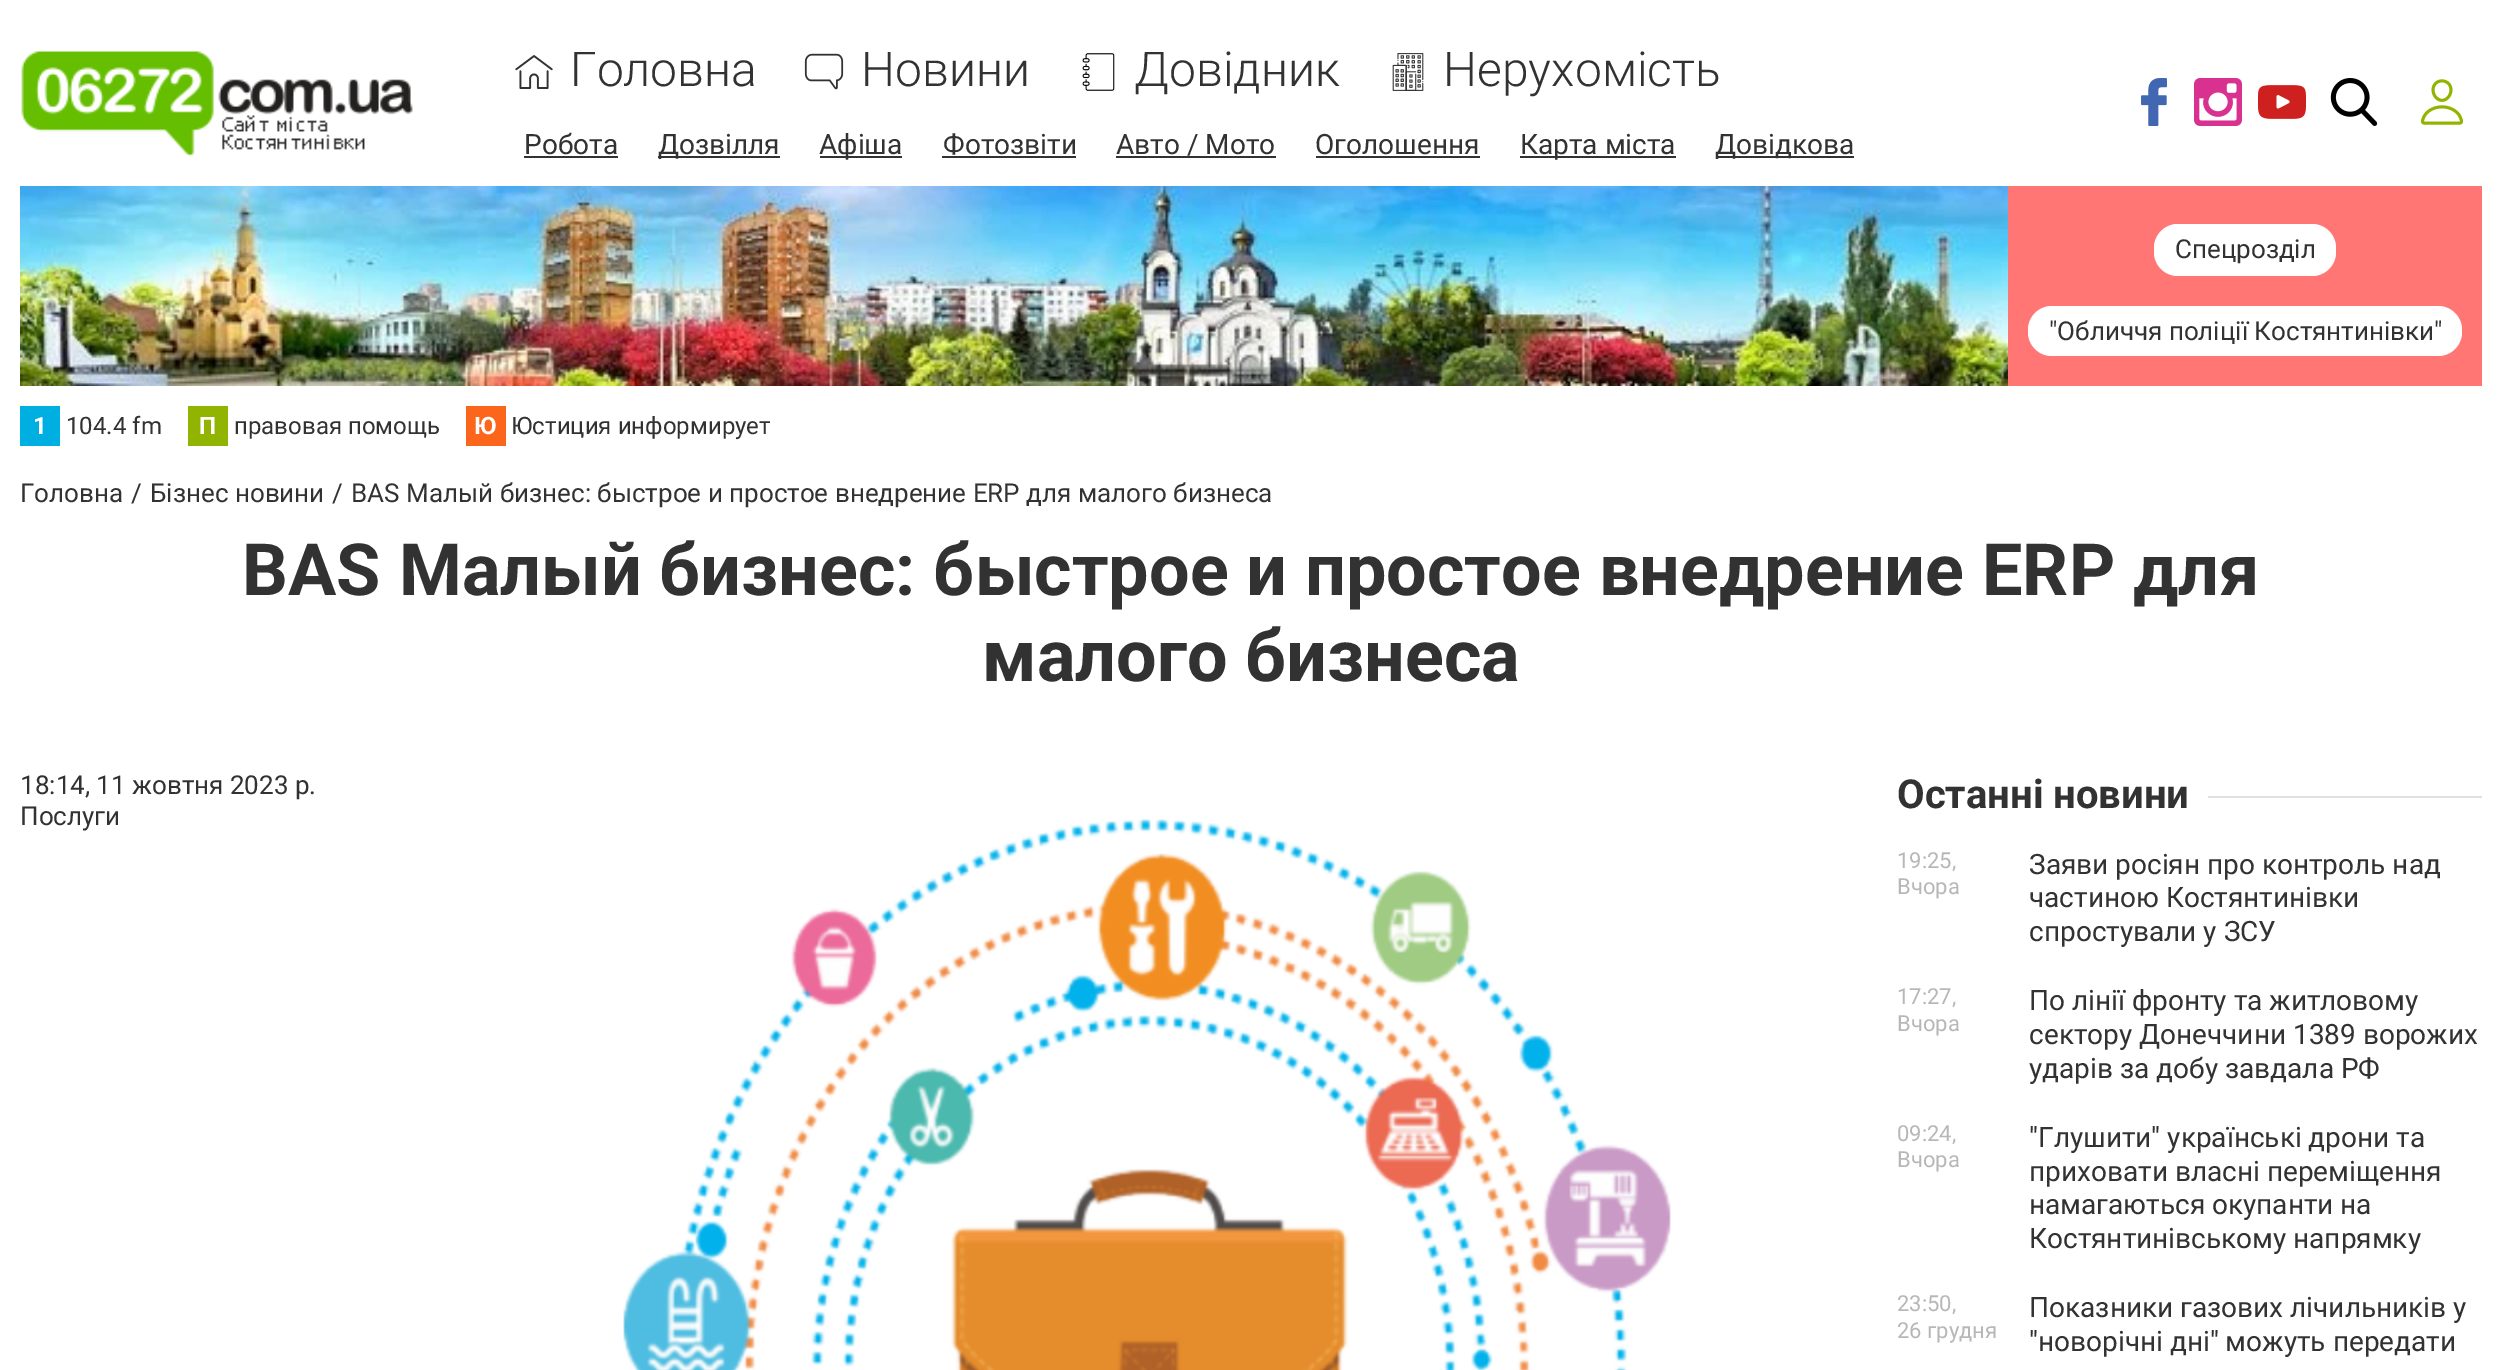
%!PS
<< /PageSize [2501 1370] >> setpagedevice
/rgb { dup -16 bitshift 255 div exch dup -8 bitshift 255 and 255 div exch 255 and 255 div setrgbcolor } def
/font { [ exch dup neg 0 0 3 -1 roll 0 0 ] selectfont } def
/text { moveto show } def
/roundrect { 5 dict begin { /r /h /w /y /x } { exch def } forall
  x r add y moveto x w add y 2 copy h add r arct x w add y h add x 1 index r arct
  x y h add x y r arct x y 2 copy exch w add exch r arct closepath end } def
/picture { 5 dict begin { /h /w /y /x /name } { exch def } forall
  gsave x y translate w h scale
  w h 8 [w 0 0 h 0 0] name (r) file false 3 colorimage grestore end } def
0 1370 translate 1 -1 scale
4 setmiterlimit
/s1 { /Roboto-Light 48 font 16#323232 rgb } def
/s2 { /Roboto-Regular 28 font 16#323232 rgb } def
/s3 { /Roboto-Regular 26 font 16#323232 rgb } def
/s4 { /Roboto-Bold 24 font 16#FFFFFF rgb } def
/s5 { /Roboto-Regular 24 font 16#323232 rgb } def
/s6 { /Roboto-Bold 72 font 16#323232 rgb } def
/s7 { /Roboto-Bold 40 font 16#323232 rgb } def
/s8 { /Roboto-Regular 22 font 16#B7B7B7 rgb } def
16#FFFFFF rgb
0 0 2501 1370 rectfill
(pic1.raw) 21 50 392 107 picture
(pic2.raw) 515 55 38 34 picture
s1
(Головна) 570 86 text
(pic3.raw) 804 53 40 37 picture
(Новини) 861 86 text
(pic4.raw) 1082 53 33 38 picture
(Довідник) 1134 86 text
(pic5.raw) 1392 53 32 38 picture
(Нерухомість) 1443 86 text
s2
(Робота) 524 154 text
524 156 94 2 rectfill
658 156 122 2 rectfill
(Дозвілля) 658 154 text
820 156 82 2 rectfill
(Афіша) 819 154 text
(Фотозвіти) 943 154 text
942 156 134 2 rectfill
(Авто / Мото) 1116 154 text
1116 156 160 2 rectfill
(Оголошення) 1315 154 text
1316 156 164 2 rectfill
1520 156 156 2 rectfill
(Карта міста) 1520 154 text
1716 156 138 2 rectfill
(Довідкова) 1715 154 text
(pic6.raw) 2141 78 26 48 picture
(pic7.raw) 2194 78 48 48 picture
(pic8.raw) 2258 85 48 34 picture
(pic9.raw) 2330 78 48 48 picture
(pic10.raw) 2420 79 44 46 picture
(pic11.raw) 20 186 1988 200 picture
16#FF7675 rgb
2008 186 474 200 rectfill
16#FFFFFF rgb
2154 224 182 52 24 roundrect fill
s3
(Спецрозділ) 2175 258 text
16#FFFFFF rgb
2028 306 434 50 24 roundrect fill
s3
("Обличчя поліції Костянтинівки") 2049 340 text
16#00AFE1 rgb
20 406 40 40 rectfill
s4
(1) 33 434 text
s5
(104.4 fm) 66 434 text
16#90B400 rgb
188 406 40 40 rectfill
s4
(П) 199 434 text
s5
(правовая помощь) 234 434 text
16#FB661C rgb
466 406 40 40 rectfill
s4
(Ю) 474 434 text
s5
(Юстиция информирует) 511 434 text
s3
(Головна) 20 502 text
(/) 131 502 text
(Бізнес новини) 150 502 text
(/) 332 502 text
(BAS Малый бизнес: быстрое и простое внедрение ERP для малого бизнеса) 351 502 text
s6
(BAS Малый бизнес: быстрое и простое внедрение ERP для) 242 595 text
(малого бизнеса) 982 681 text
s3
(18:14, 11 жовтня 2023 р.) 20 794 text
(Послуги) 20 825 text
(pic12.raw) 623 819 1048 551 picture
s7
(Останні новини) 1897 808 text
16#E0E0E0 rgb
2208 796 274 2 rectfill
s8
(19:25,) 1897 868 text
(Вчора) 1897 894 text
s2
(Заяви росіян про контроль над) 2029 874 text
(частиною Костянтинівки) 2029 907 text
(спростували у ЗСУ) 2029 941 text
s8
(17:27,) 1897 1004 text
(Вчора) 1897 1031 text
s2
(По лінії фронту та житловому) 2029 1010 text
(сектору Донеччини 1389 ворожих) 2029 1044 text
(ударів за добу завдала РФ) 2029 1078 text
s8
(09:24,) 1897 1141 text
(Вчора) 1897 1167 text
s2
("Глушити" українські дрони та) 2029 1147 text
(приховати власні переміщення) 2029 1181 text
(намагаються окупанти на) 2029 1214 text
(Костянтинівському напрямку) 2029 1248 text
s8
(23:50,) 1897 1311 text
(26 грудня) 1897 1338 text
s2
(Показники газових лічильників у) 2029 1317 text
("новорічні дні" можуть передати) 2029 1351 text
showpage
